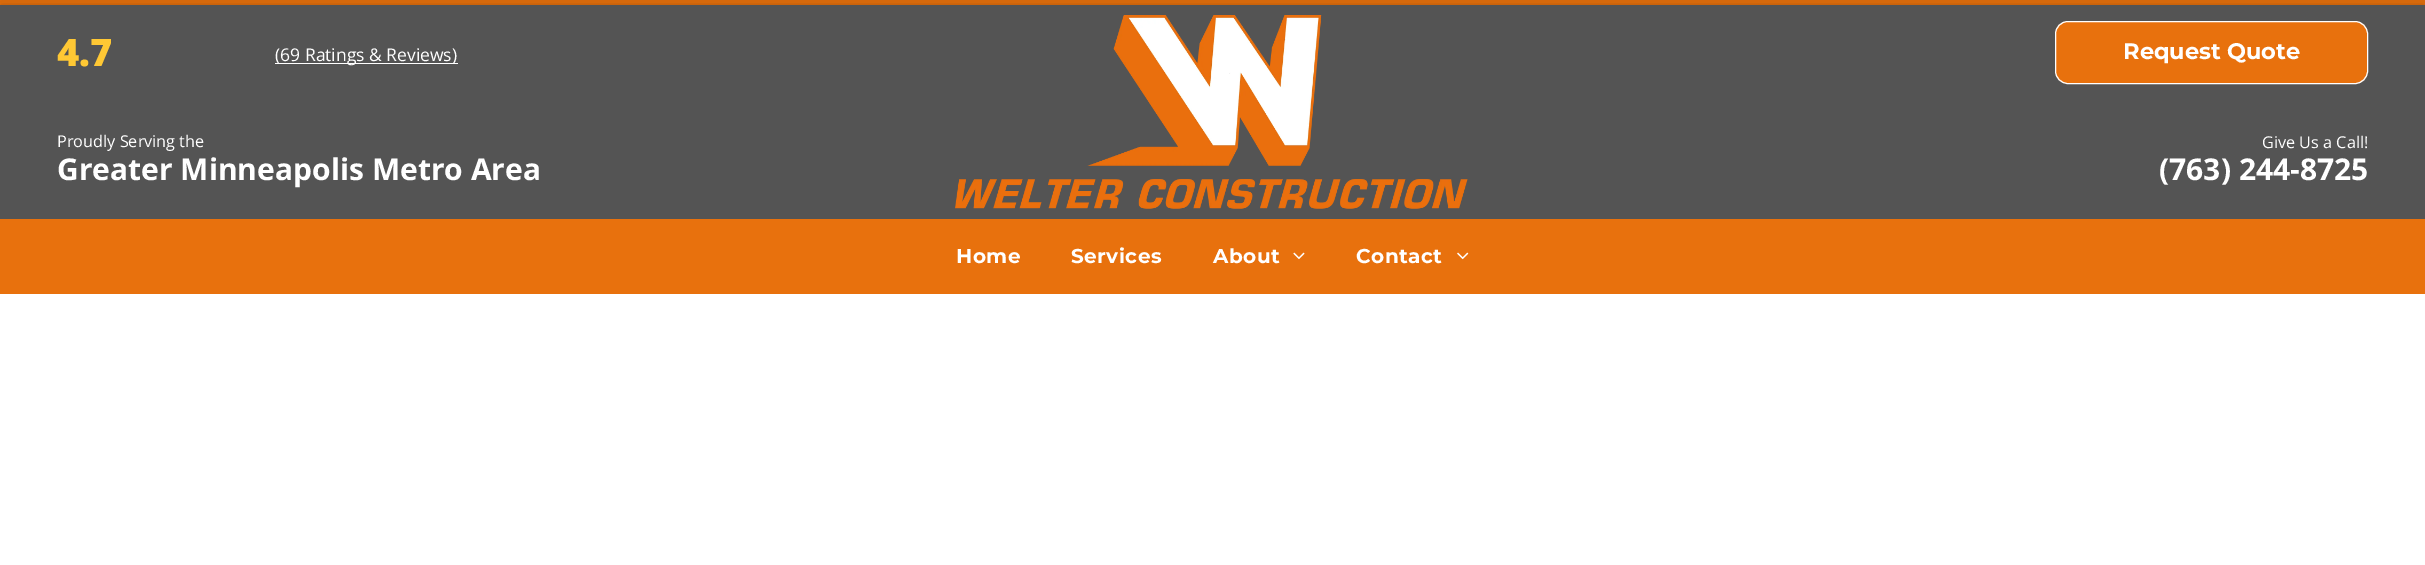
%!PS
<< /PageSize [2425 565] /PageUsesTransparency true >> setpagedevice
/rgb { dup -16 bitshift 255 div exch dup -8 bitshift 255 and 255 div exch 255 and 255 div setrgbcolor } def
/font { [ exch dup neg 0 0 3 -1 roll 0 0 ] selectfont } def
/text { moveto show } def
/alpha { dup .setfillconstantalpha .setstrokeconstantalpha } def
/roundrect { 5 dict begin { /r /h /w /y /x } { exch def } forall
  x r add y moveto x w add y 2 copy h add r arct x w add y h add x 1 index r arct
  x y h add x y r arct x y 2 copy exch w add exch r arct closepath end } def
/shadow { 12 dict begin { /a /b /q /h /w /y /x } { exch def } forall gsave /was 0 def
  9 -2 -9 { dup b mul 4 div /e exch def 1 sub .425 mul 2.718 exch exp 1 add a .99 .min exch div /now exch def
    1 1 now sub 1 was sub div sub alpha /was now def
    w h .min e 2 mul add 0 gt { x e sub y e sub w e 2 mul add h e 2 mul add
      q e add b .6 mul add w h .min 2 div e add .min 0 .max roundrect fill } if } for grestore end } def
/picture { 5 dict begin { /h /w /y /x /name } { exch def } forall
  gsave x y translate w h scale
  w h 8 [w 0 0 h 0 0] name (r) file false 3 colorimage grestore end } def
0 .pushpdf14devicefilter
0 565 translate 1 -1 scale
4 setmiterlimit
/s1 { /OpenSans-ExtraBold 38 font 16#FFC834 rgb } def
/s2 { /OpenSans-Regular 17.5 font 16#FFFFFF rgb } def
/s3 { /OpenSans-Regular 16.25 font 16#FFFFFF rgb } def
/s4 { /OpenSans-Bold 30 font 16#FFFFFF rgb } def
/s5 { /Montserrat-Bold 22.5 font 16#FFFFFF rgb } def
16#545454 rgb
0 0 2425 565 rectfill
16#E8710D rgb
0 0 2425 5 rectfill
gsave
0 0 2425 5 rectclip
16#000000 rgb
0 5 2425 289 0 7 0.25 shadow
grestore
s1
(4.7) 57 66 text
16#FFFFFF rgb
275 63 183 1 rectfill
s2
(\(69 Ratings & Reviews\)) 275 61 text
s3
(Proudly Serving the) 57 147 text
s4
(Greater Minneapolis Metro Area) 57 180 text
(pic1.raw) 955 15 513 194 picture
16#E8710D rgb
2055.5 21.5 312 62 12.5 roundrect gsave fill grestore
16#FFFFFF rgb
stroke
s5
(Request Quote) 2123 59 text
s3
(Give Us a Call!) 2262 148 text
s4
(\(763\) 244-8725) 2159 180 text
16#E8710D rgb
0 219 2425 75 rectfill
/Montserrat-Bold 20 font
16#FFFFFF rgb
956 263 moveto 0.5 0 (Home) ashow
1071 263 moveto 0.5 0 (Services) ashow
1213 263 moveto 0.5 0 (About) ashow
(pic2.raw) 1293 252 12 8 picture
1356 263 moveto 0.5 0 (Contact) ashow
(pic3.raw) 1457 252 12 8 picture
0 294 2425 271 rectfill
.poppdf14devicefilter showpage
